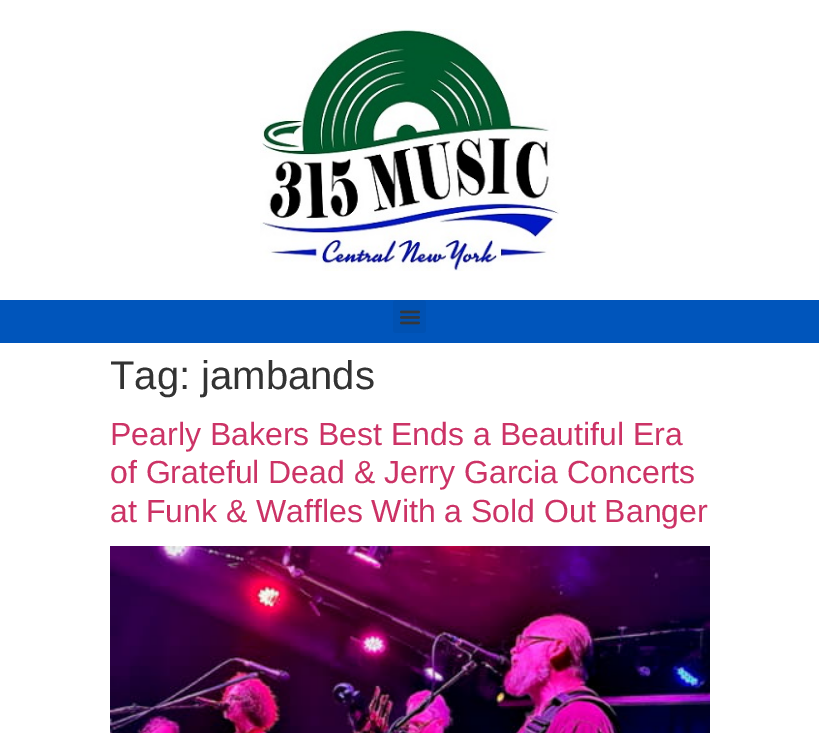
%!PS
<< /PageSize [819 733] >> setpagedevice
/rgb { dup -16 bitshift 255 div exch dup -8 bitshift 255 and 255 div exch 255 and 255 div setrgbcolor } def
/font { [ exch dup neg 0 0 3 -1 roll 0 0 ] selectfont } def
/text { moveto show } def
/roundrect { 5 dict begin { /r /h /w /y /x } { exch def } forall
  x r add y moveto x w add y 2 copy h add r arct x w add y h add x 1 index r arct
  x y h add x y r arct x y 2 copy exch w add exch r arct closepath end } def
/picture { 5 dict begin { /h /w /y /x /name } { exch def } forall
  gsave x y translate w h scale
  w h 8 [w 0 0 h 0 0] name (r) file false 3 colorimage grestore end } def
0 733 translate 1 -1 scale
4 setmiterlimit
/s1 { /LiberationSans-Regular 40 font 16#333333 rgb } def
/s2 { /LiberationSans-Regular 32 font 16#CC3366 rgb } def
16#FFFFFF rgb
0 0 819 733 rectfill
(pic1.raw) 260 29 300 242 picture
16#0055BB rgb
0 300 819 43 rectfill
16#0051B2 rgb
393 300 33 33 3 roundrect fill
(pic2.raw) 400 310 20 15 picture
s1
(Tag: jambands) 110 389 text
s2
(Pearly Bakers Best Ends a Beautiful Era) 110 445 text
(of Grateful Dead & Jerry Garcia Concerts) 110 483 text
(at Funk & Waffles With a Sold Out Banger) 110 522 text
(pic3.raw) 110 546 600 187 picture
showpage
